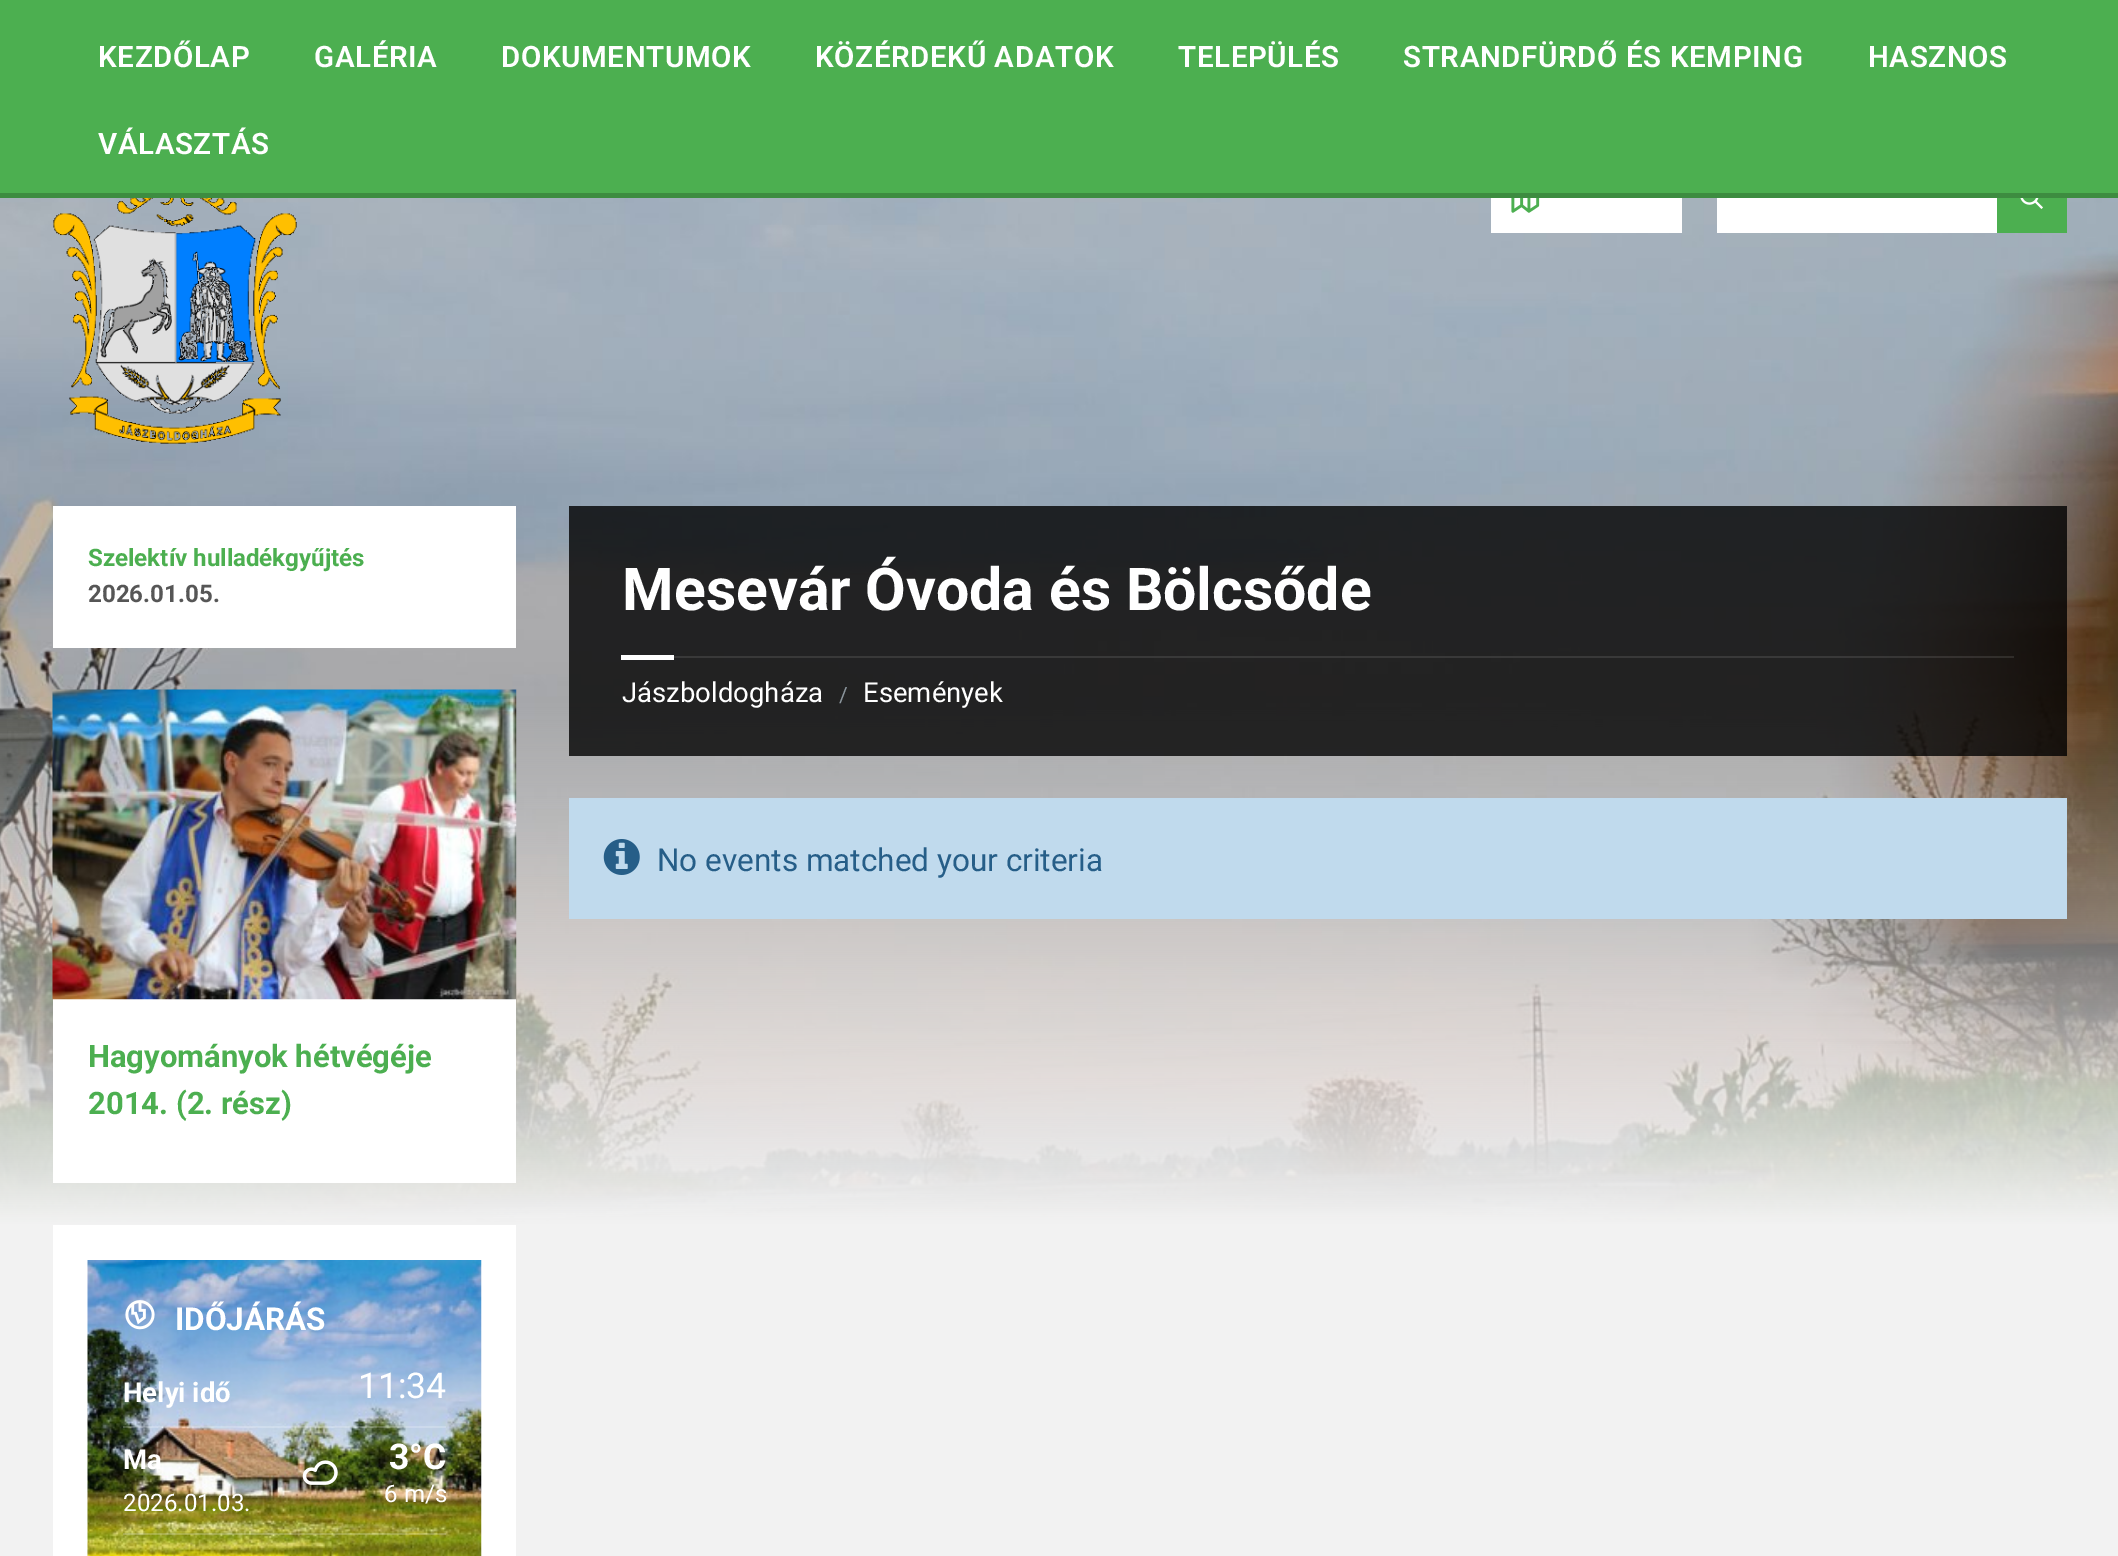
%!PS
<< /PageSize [2118 1556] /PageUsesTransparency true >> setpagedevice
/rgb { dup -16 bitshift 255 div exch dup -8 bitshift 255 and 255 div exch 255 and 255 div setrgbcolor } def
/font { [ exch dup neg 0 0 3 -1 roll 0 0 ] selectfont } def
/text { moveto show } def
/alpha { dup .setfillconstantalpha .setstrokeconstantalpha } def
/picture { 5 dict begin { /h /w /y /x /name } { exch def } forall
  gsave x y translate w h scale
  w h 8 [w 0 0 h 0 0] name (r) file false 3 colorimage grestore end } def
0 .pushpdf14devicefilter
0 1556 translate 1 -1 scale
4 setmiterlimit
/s1 { /Roboto-Bold 24.1 font 16#4CAF50 rgb } def
/s2 { /Roboto-Bold 24.1 font 16#565656 rgb } def
/s3 { /Roboto-Bold 31 font 16#4CAF50 rgb } def
/s4 { /Roboto-Bold 31.5 font 16#FFFFFF rgb } def
/s5 { /Roboto-Bold 27.5 font 16#FFFFFF rgb } def
/s6 { /Roboto-Regular 35.5 font 16#FFFFFF rgb } def
/s7 { /Roboto-Regular 24.1 font 16#FFFFFF rgb } def
/s8 { /Roboto-Bold 35.5 font 16#FFFFFF rgb } def
/s9 { /Roboto-Bold 59 font 16#FFFFFF rgb } def
/s10 { /Roboto-Regular 27.5 font 16#FFFFFF rgb } def
/s11 { /Roboto-Regular 21 font 16#8A949B rgb } def
/s12 { /Roboto-Regular 31.5 font 16#265E88 rgb } def
16#F2F2F2 rgb
0 0 2118 1556 rectfill
16#4CAF50 rgb
0 0 2118 193 rectfill
16#3D8C40 rgb
0 193 2118 5 rectfill
/Roboto-SemiBold 29.5 font
16#FFFFFF rgb
98 67 moveto 0.6 0 (KEZDŐLAP) ashow
314 67 moveto 0.6 0 (GALÉRIA) ashow
501 67 moveto 0.6 0 (DOKUMENTUMOK) ashow
815 67 moveto 0.6 0 (KÖZÉRDEKŰ ADATOK) ashow
1178 67 moveto 0.6 0 (TELEPÜLÉS) ashow
1403 67 moveto 0.6 0 (STRANDFÜRDŐ ÉS KEMPING) ashow
1868 67 moveto 0.6 0 (HASZNOS) ashow
98 154 moveto 0.6 0 (VÁLASZTÁS) ashow
(pic4.raw) 0 198 2118 1027 picture
(pic1.raw) 53 198 244 246 picture
1491 198 191 35 rectfill
(pic2.raw) 1511 198 29 15 picture
1717 198 280 35 rectfill
16#4CAF50 rgb
1997 198 70 35 rectfill
(pic3.raw) 2020 198 23 11 picture
16#FFFFFF rgb
53 506 463 142 rectfill
s1
(Szelektív hulladékgyűjtés) 88 566 text
s2
(2026.01.05.) 88 602 text
16#FFFFFF rgb
53 999 463 184 rectfill
(pic5.raw) 52 689 465 311 picture
s3
(Hagyományok hétvégéje) 88 1067 text
(2014. \(2. rész\)) 88 1114 text
16#FFFFFF rgb
53 1225 463 331 rectfill
(pic6.raw) 87 1260 395 296 picture
(pic7.raw) 125 1300 30 30 picture
s4
(IDŐJÁRÁS) 175 1330 text
s5
(Helyi idő) 123 1402 text
s6
(11:34) 358 1398 text
0.2 alpha
123 1426 323 2 rectfill
1 alpha
s5
(Ma) 123 1469 text
s7
(2026.01.03.) 123 1511 text
s8
(3°C) 389 1469 text
(pic8.raw) 302 1460 36 25 picture
s7
(6 m/s) 384 1502 text
0.2 alpha
123 1533 323 2 rectfill
0.8 alpha
16#000000 rgb
569 506 1498 250 rectfill
1 alpha
s9
(Mesevár Óvoda és Bölcsőde) 622 610 text
0.1 alpha
674 656 1340 2 rectfill
1 alpha
621 655 53 5 rectfill
s10
(Jászboldogháza) 622 702 text
s11
(/) 839 702 text
s10
(Események) 863 702 text
16#C0DAED rgb
569 798 1498 121 rectfill
(pic9.raw) 603 839 37 36 picture
s12
(No events matched your criteria) 657 871 text
.poppdf14devicefilter showpage
